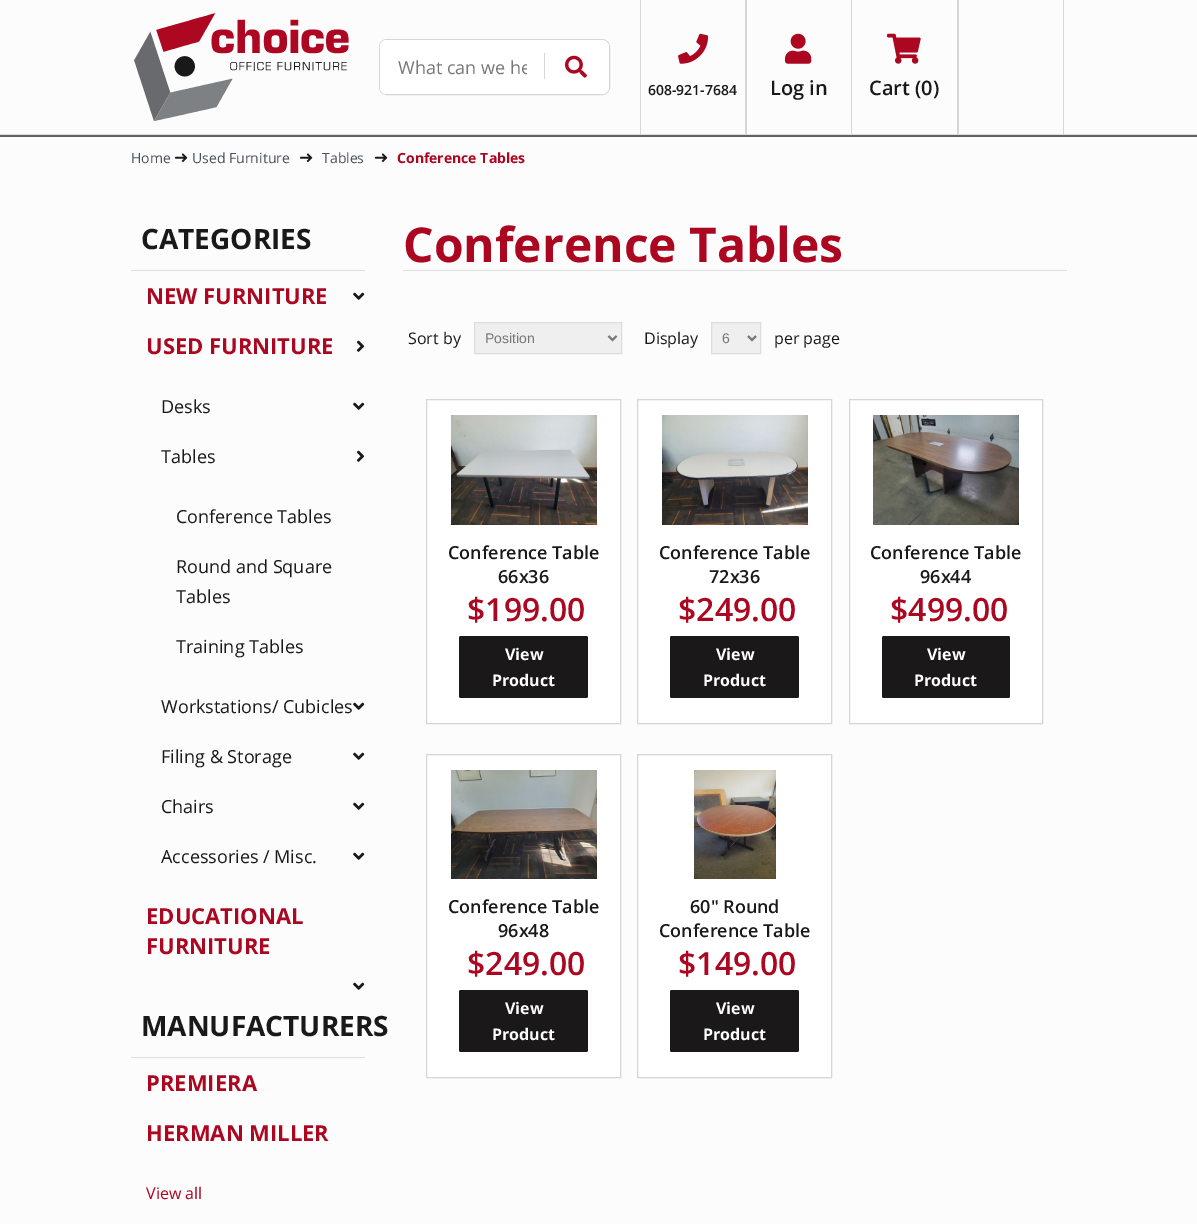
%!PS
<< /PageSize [1197 1224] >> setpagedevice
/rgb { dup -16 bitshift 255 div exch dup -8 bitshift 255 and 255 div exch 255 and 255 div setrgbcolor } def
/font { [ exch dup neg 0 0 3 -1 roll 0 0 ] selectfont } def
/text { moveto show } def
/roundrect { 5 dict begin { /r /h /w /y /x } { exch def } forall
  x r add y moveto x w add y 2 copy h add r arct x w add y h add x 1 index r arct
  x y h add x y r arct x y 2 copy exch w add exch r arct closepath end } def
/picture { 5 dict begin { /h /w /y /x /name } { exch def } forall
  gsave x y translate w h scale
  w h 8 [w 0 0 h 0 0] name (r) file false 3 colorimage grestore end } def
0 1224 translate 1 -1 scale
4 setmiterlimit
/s1 { /OpenSans-Regular 18 font 16#777777 rgb } def
/s2 { /OpenSans-SemiBold 14 font 16#191919 rgb } def
/s3 { /OpenSans-SemiBold 20 font 16#191919 rgb } def
/s4 { /OpenSans-Regular 14 font 16#48525E rgb } def
/s5 { /OpenSans-Bold 14 font 16#AB0720 rgb } def
/s6 { /OpenSans-Bold 28 font 16#191919 rgb } def
/s7 { /OpenSans-Bold 22 font 16#AB0720 rgb } def
/s8 { /OpenSans-Regular 18 font 16#191919 rgb } def
/s9 { /OpenSans-Regular 16 font 16#AB0720 rgb } def
/s10 { /OpenSans-Bold 48 font 16#AB0720 rgb } def
/s11 { /OpenSans-Regular 16 font 16#191919 rgb } def
/s12 { /LiberationSans-Regular 14 font 16#777777 rgb } def
/s13 { /OpenSans-SemiBold 18 font 16#191919 rgb } def
/s14 { /OpenSans-SemiBold 32 font 16#AB0720 rgb } def
/s15 { /OpenSans-Bold 16 font 16#FFFFFF rgb } def
16#FCFCFC rgb
0 0 1197 1224 rectfill
16#DDDDDD rgb
0 134 1197 1 rectfill
(pic1.raw) 134 13 215 108 picture
16#D6D6D6 rgb
379.5 39.5 230 55 7.5 roundrect stroke
16#FFFFFF rgb
380 40 229 54 7 roundrect fill
387 40 moveto 545 40 lineto 545 94 lineto 387 94 lineto 383 94 380 91 380 87 curveto 380 47 lineto 380 43 383 40 387 40 curveto closepath fill
gsave
398 55 129 24 rectclip
s1
(What can we he) 398 74 text
grestore
16#D6D6D6 rgb
544 53 1 26 rectfill
(pic2.raw) 565 55 22 23 picture
745 0 2 134 rectfill
640 0 1 134 rectfill
(pic3.raw) 678 33 31 31 picture
s2
(608-921-7684) 648 95 text
16#D6D6D6 rgb
851 0 1 134 rectfill
(pic4.raw) 785 33 27 31 picture
s3
(Log in) 770 95 text
16#D6D6D6 rgb
957 0 2 134 rectfill
(pic5.raw) 887 33 34 31 picture
s3
(Cart \(0\)) 869 95 text
16#D6D6D6 rgb
1063 0 1 134 rectfill
16#646363 rgb
0 135 1197 2 rectfill
s4
(Home) 131 163 text
(pic6.raw) 175 153 13 10 picture
(Used Furniture) 192 163 text
(pic6.raw) 300 153 13 10 picture
(Tables) 322 163 text
(pic6.raw) 375 153 13 10 picture
s5
(Conference Tables) 397 163 text
16#DDDDDD rgb
131 270 234 1 rectfill
s6
(CATEGORIES) 141 249 text
s7
(NEW FURNITURE) 146 304 text
(pic7.raw) 353 292 12 8 picture
(USED FURNITURE) 146 354 text
(pic8.raw) 356 340 9 12 picture
s8
(Desks) 161 413 text
(pic7.raw) 353 402 12 8 picture
(Tables) 161 463 text
(pic8.raw) 356 450 9 12 picture
(Conference Tables) 176 523 text
(Round and Square) 176 573 text
(Tables) 176 603 text
(Training Tables) 176 653 text
(Workstations/ Cubicles) 161 713 text
(pic7.raw) 353 702 12 8 picture
(Filing & Storage) 161 763 text
(pic7.raw) 353 752 12 8 picture
(Chairs) 161 813 text
(pic7.raw) 353 802 12 8 picture
(Accessories / Misc.) 161 863 text
(pic7.raw) 353 852 12 8 picture
s7
(EDUCATIONAL) 146 924 text
(FURNITURE) 146 954 text
(pic7.raw) 353 982 12 8 picture
16#DDDDDD rgb
131 1057 234 1 rectfill
s6
(MANUFACTURERS) 141 1036 text
s7
(PREMIERA) 146 1091 text
(HERMAN MILLER) 146 1141 text
s9
(View all) 146 1199 text
16#DDDDDD rgb
403 270 664 1 rectfill
s10
(Conference Tables) 403 262 text
s11
(Sort by) 408 344 text
16#EFEFEF rgb
474.5 322.5 moveto 621.5 322.5 lineto 621.5 353.5 lineto 474.5 353.5 lineto closepath gsave fill grestore
16#DDDDDD rgb
stroke
16#777777 rgb
2 setlinewidth
608.5 336 moveto 612.5 340 lineto 616.5 336 lineto stroke
s12
(Position) 485 343 text
s11
(Display) 644 344 text
16#EFEFEF rgb
711.5 322.5 moveto 760.5 322.5 lineto 760.5 353.5 lineto 711.5 353.5 lineto closepath gsave fill grestore
16#DDDDDD rgb
1 setlinewidth
stroke
16#777777 rgb
2 setlinewidth
748 336 moveto 752 340 lineto 756 336 lineto stroke
s12
(6) 722 343 text
s11
(per page) 774 344 text
16#FFFFFF rgb
426.5 399.5 moveto 620.5 399.5 lineto 620.5 723.5 lineto 426.5 723.5 lineto closepath gsave fill grestore
16#D6D6D6 rgb
1 setlinewidth
stroke
(pic9.raw) 451 415 146 110 picture
s13
(Conference Table) 448 559 text
(66x36) 498 583 text
s14
($199.00) 467 621 text
16#1A1818 rgb
459 636 129 62 2 roundrect fill
s15
(View) 505 660 text
(Product) 492 686 text
637.5 399.5 moveto 831.5 399.5 lineto 831.5 723.5 lineto 637.5 723.5 lineto closepath gsave fill grestore
16#D6D6D6 rgb
stroke
(pic10.raw) 662 415 146 110 picture
s13
(Conference Table) 659 559 text
(72x36) 709 583 text
s14
($249.00) 678 621 text
16#1A1818 rgb
670 636 129 62 2 roundrect fill
s15
(View) 716 660 text
(Product) 703 686 text
849.5 399.5 moveto 1042.5 399.5 lineto 1042.5 723.5 lineto 849.5 723.5 lineto closepath gsave fill grestore
16#D6D6D6 rgb
stroke
(pic11.raw) 873 415 146 110 picture
s13
(Conference Table) 870 559 text
(96x44) 920 583 text
s14
($499.00) 890 621 text
16#1A1818 rgb
882 636 128 62 2 roundrect fill
s15
(View) 927 660 text
(Product) 914 686 text
426.5 754.5 moveto 620.5 754.5 lineto 620.5 1077.5 lineto 426.5 1077.5 lineto closepath gsave fill grestore
16#D6D6D6 rgb
stroke
(pic12.raw) 451 770 146 109 picture
s13
(Conference Table) 448 913 text
(96x48) 498 937 text
s14
($249.00) 467 975 text
16#1A1818 rgb
459 990 129 62 2 roundrect fill
s15
(View) 505 1014 text
(Product) 492 1040 text
637.5 754.5 moveto 831.5 754.5 lineto 831.5 1077.5 lineto 637.5 1077.5 lineto closepath gsave fill grestore
16#D6D6D6 rgb
stroke
(pic13.raw) 694 770 82 109 picture
s13
(60" Round) 690 913 text
(Conference Table) 659 937 text
s14
($149.00) 678 975 text
16#1A1818 rgb
670 990 129 62 2 roundrect fill
s15
(View) 716 1014 text
(Product) 703 1040 text
showpage
